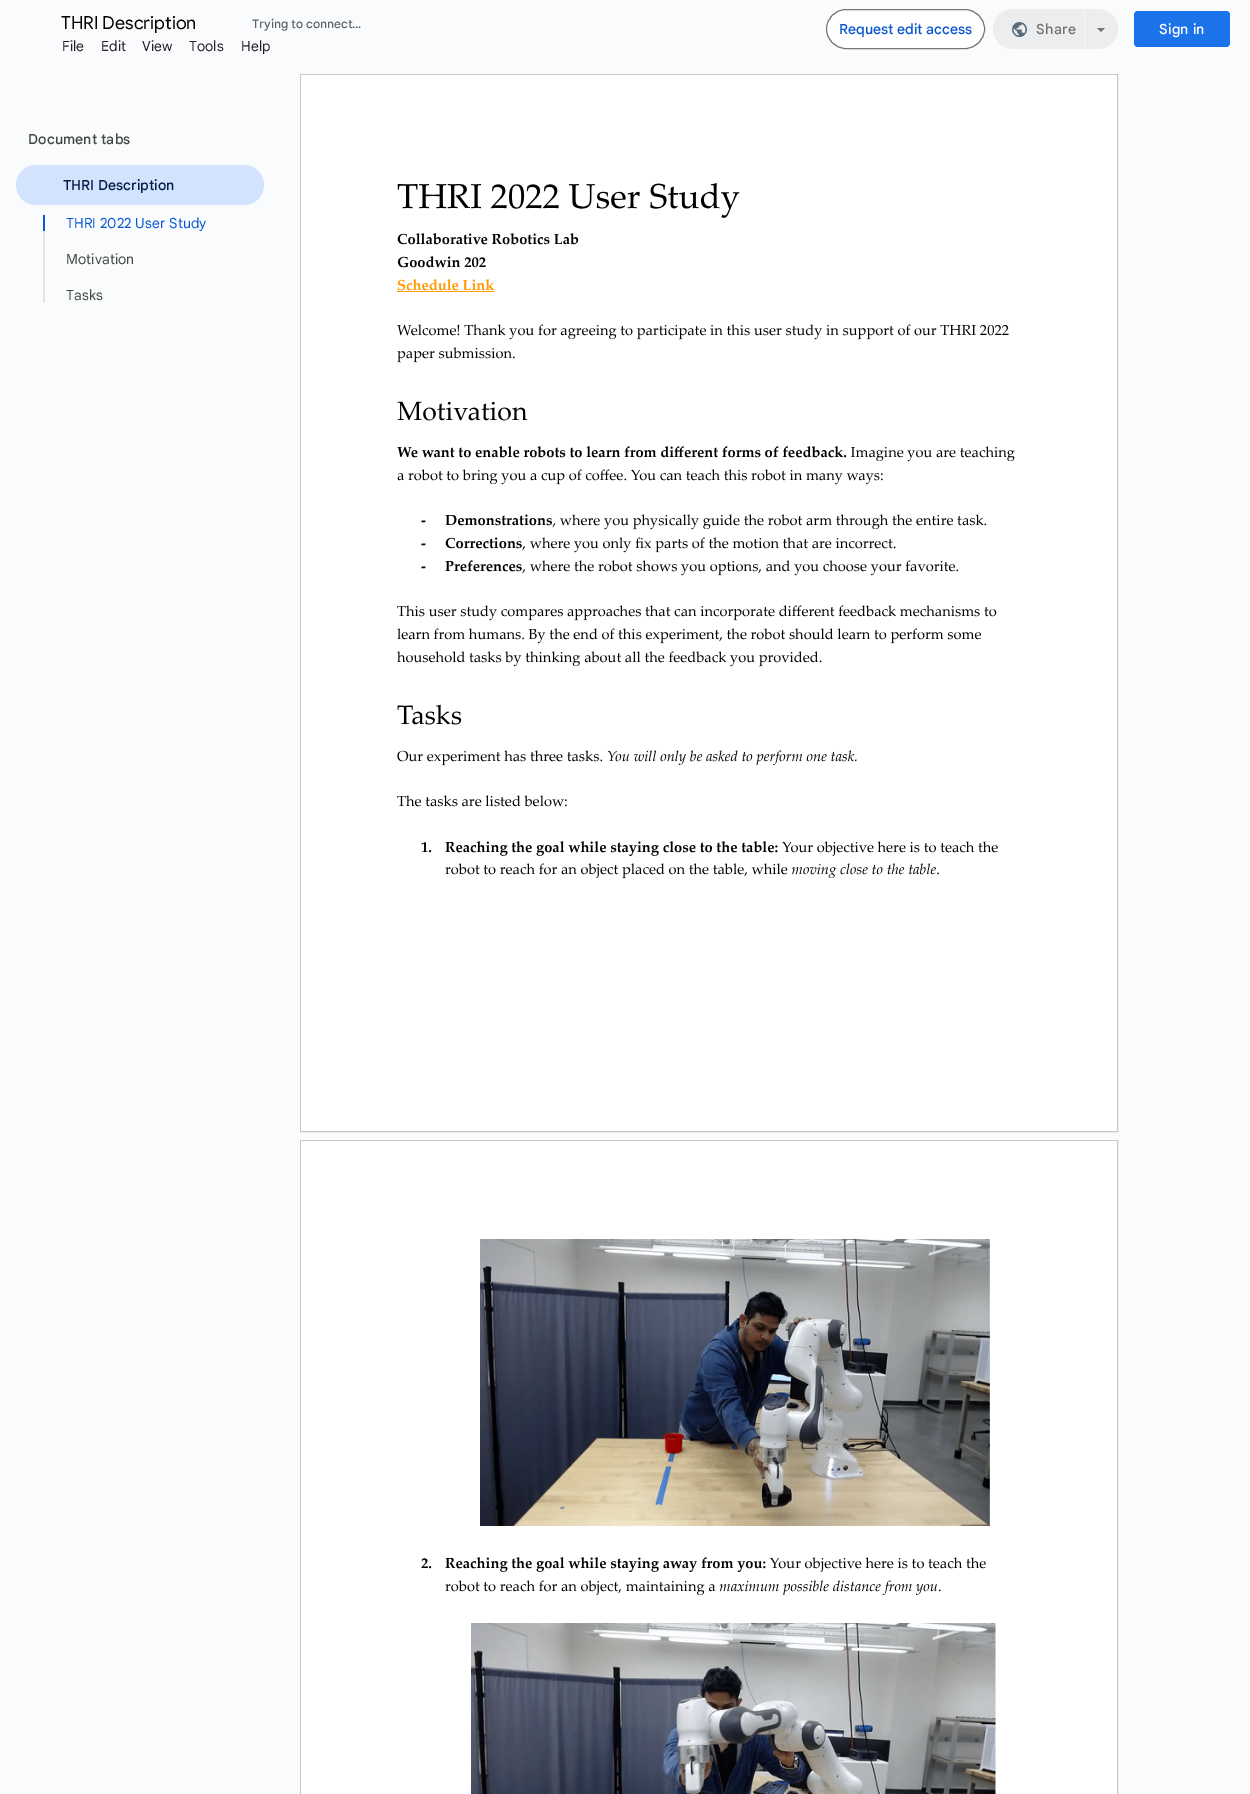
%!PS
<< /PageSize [1250 1794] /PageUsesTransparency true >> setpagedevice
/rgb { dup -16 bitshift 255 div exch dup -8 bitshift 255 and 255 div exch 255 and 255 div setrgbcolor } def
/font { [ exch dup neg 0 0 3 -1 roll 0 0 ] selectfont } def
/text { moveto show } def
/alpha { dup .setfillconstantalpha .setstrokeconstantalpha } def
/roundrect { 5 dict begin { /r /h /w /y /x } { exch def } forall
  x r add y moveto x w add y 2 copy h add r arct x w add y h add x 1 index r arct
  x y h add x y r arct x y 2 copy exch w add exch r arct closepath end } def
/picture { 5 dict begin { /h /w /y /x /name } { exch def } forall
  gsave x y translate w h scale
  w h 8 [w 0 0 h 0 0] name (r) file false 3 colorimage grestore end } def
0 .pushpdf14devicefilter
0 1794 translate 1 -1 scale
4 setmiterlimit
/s1 { /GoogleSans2-Regular 18 font 16#000000 rgb } def
/s2 { /GoogleSans-Medium 12 font 16#5F6368 rgb } def
/s3 { /GoogleSans-Medium 14 font 16#0B57D0 rgb } def
/s4 { /GoogleSans-Regular 14 font 16#202124 rgb } def
/s5 { /GoogleSans-Medium 14 font 16#041E49 rgb } def
16#F9FBFD rgb
0 0 1250 1794 rectfill
s1
(THRI Description) 61 29 text
s2
(Trying to connect…) 252 28 text
16#FFFFFF rgb
826.5 9.5 158 39 19.5 roundrect gsave fill grestore
16#747775 rgb
stroke
s3
(Request edit access) 839 34 text
16#ECEDEE rgb
1013 9 moveto 1085 9 lineto 1085 49 lineto 1013 49 lineto 1002 49 993 40 993 29 curveto 993 18 1002 9 1013 9 curveto closepath fill
(pic1.raw) 1012 22 15 15 picture
16#727373 rgb
1036 34 moveto 0.25 0 (Share) ashow
0.62 alpha
16#E4E4E4 rgb
1084 9 moveto 1098 9 lineto 1109 9 1118 18 1118 29 curveto 1118 40 1109 49 1098 49 curveto 1084 49 lineto closepath fill
1 alpha
16#F8F8F9 rgb
1085 10 moveto 1084 9 lineto 1084 49 lineto 1085 48 lineto closepath fill
16#727373 rgb
1097 28 moveto 1105 28 lineto 1101 32 lineto closepath fill
16#1A73E8 rgb
1134 11 96 36 4 roundrect fill
16#FFFFFF rgb
1159 34 moveto 0.25 0 (Sign in) ashow
s4
(File) 62 51 text
(Edit) 101 51 text
(View) 142 51 text
(Tools) 189 51 text
(Help) 241 51 text
/GoogleSans-Medium 14 font
16#444746 rgb
28 144 moveto 0.1 0 (Document tabs) ashow
16#D3E3FD rgb
16 165 248 40 20 roundrect fill
s5
(THRI Description) 63 190 text
16#0B57D0 rgb
43 215 2 16 rectfill
16#E3E3E3 rgb
43 231 2 72 rectfill
/GoogleSans-Regular 14 font
16#0B57D0 rgb
66 228 moveto 0.1 0 (THRI 2022 User Study) ashow
16#444746 rgb
66 264 moveto 0.1 0 (Motivation) ashow
66 300 moveto 0.1 0 (Tasks) ashow
16#C7C7C7 rgb
300.5 74.5 817 1057 rectstroke
(pic2.raw) 301 75 816 1056 picture
300.5 1140.5 817 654 rectstroke
(pic3.raw) 301 1141 816 653 picture
.poppdf14devicefilter showpage
